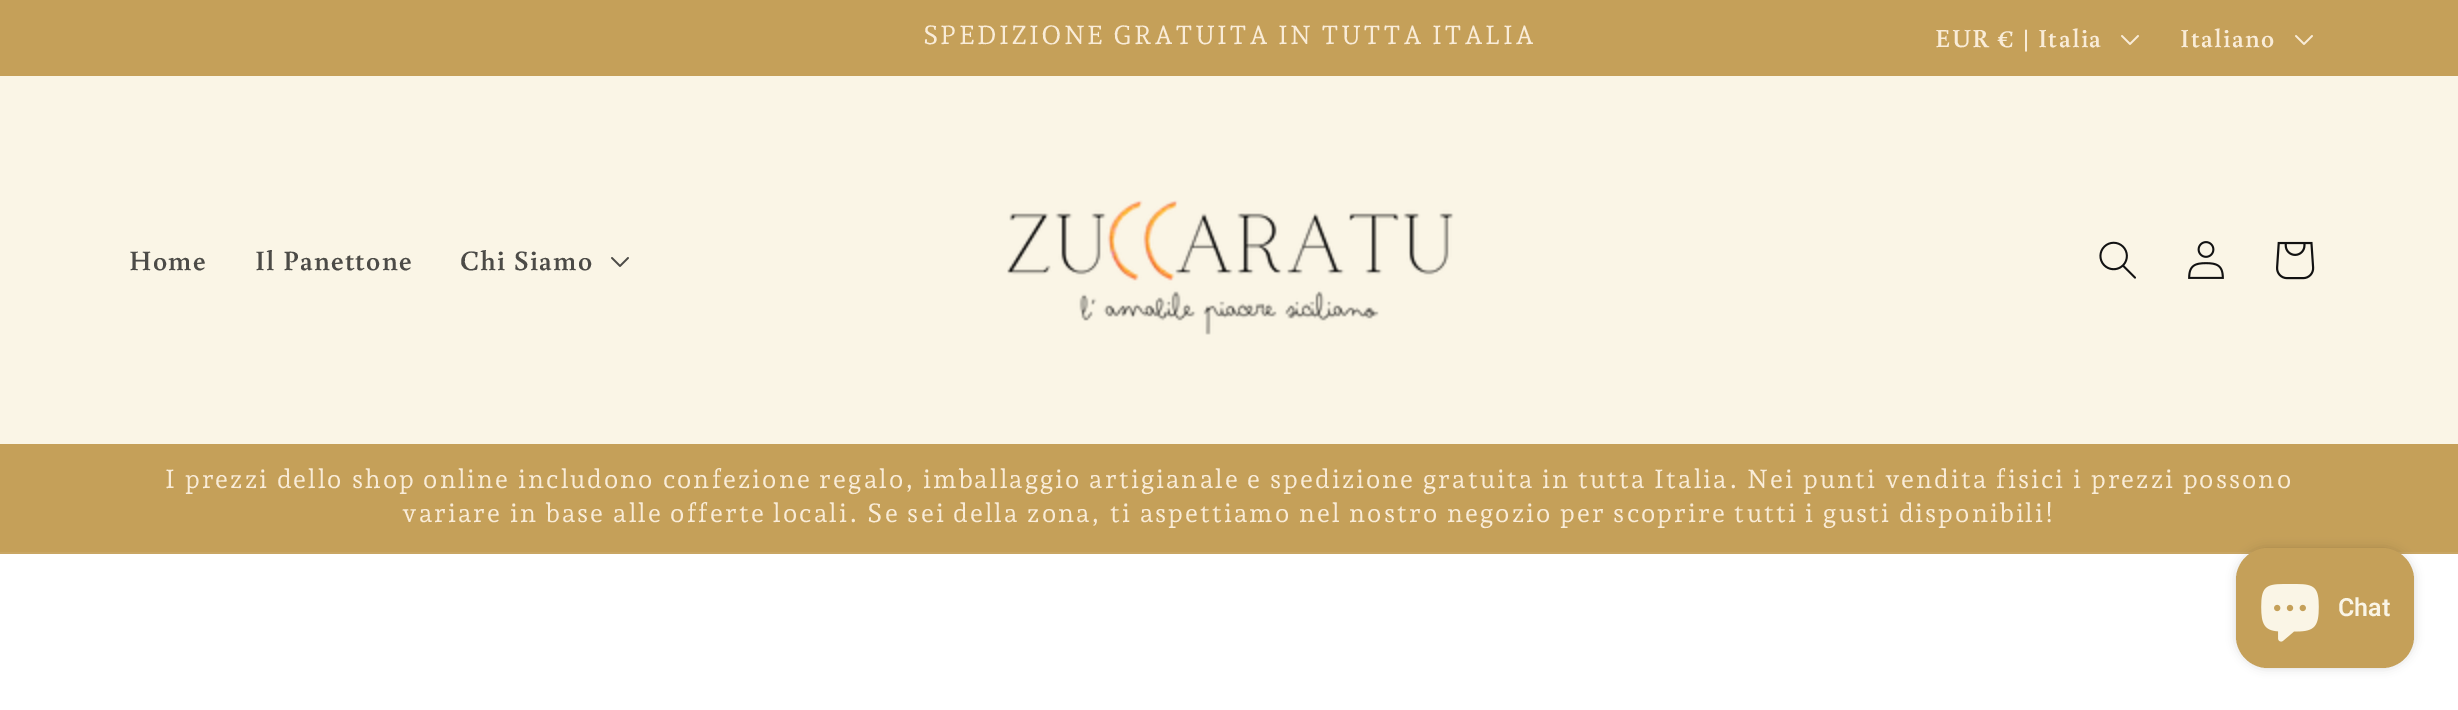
%!PS
<< /PageSize [2458 710] /PageUsesTransparency true >> setpagedevice
/rgb { dup -16 bitshift 255 div exch dup -8 bitshift 255 and 255 div exch 255 and 255 div setrgbcolor } def
/font { [ exch dup neg 0 0 3 -1 roll 0 0 ] selectfont } def
/text { moveto show } def
/alpha { dup .setfillconstantalpha .setstrokeconstantalpha } def
/roundrect { 5 dict begin { /r /h /w /y /x } { exch def } forall
  x r add y moveto x w add y 2 copy h add r arct x w add y h add x 1 index r arct
  x y h add x y r arct x y 2 copy exch w add exch r arct closepath end } def
/shadow { 12 dict begin { /a /b /q /h /w /y /x } { exch def } forall gsave /was 0 def
  9 -2 -9 { dup b mul 4 div /e exch def 1 sub .425 mul 2.718 exch exp 1 add a .99 .min exch div /now exch def
    1 1 now sub 1 was sub div sub alpha /was now def
    w h .min e 2 mul add 0 gt { x e sub y e sub w e 2 mul add h e 2 mul add
      q e add b .6 mul add w h .min 2 div e add .min 0 .max roundrect fill } if } for grestore end } def
/picture { 5 dict begin { /h /w /y /x /name } { exch def } forall
  gsave x y translate w h scale
  w h 8 [w 0 0 h 0 0] name (r) file false 3 colorimage grestore end } def
0 .pushpdf14devicefilter
0 710 translate 1 -1 scale
4 setmiterlimit
/s1 { /Roboto-SemiBold 25 font 16#FAF5E6 rgb } def
16#FFFFFF rgb
0 0 2458 710 rectfill
16#C5A059 rgb
0 0 2458 76 rectfill
/AndadaPro-Regular 26 font
16#F9ECD8 rgb
923 44 moveto 2 0 (SPEDIZIONE GRATUITA IN TUTTA ITALIA) ashow
/Buenard-SemiBold 26 font
1935 47 moveto 1.25 0 (EUR € | Italia) ashow
(pic1.raw) 2121 35 18 10 picture
2180 47 moveto 1.25 0 (Italiano) ashow
(pic1.raw) 2295 35 18 10 picture
16#FAF5E6 rgb
0 76 2458 368 rectfill
/Buenard-SemiBold 28 font
16#4C4B47 rgb
129 270 moveto 1.25 0 (Home) ashow
255 270 moveto 1.25 0 (Il Panettone) ashow
460 270 moveto 1.25 0 (Chi Siamo) ashow
(pic2.raw) 611 257 18 10 picture
(pic3.raw) 1007 200 447 135 picture
(pic4.raw) 2099 241 37 38 picture
(pic5.raw) 2188 241 36 38 picture
(pic6.raw) 2276 241 39 39 picture
16#C5A059 rgb
0 444 2458 108 rectfill
16#C9A663 rgb
0 552 2458 2 rectfill
/AndadaPro-Regular 26 font
16#F9ECD8 rgb
165 488 moveto 2 0 (I prezzi dello shop online includono confezione regalo, imballaggio artigianale e spedizione gratuita in tutta Italia. Nei punti vendita fisici i prezzi possono) ashow
402 522 moveto 2 0 (variare in base alle offerte locali. Se sei della zona, ti aspettiamo nel nostro negozio per scoprire tutti i gusti disponibili!) ashow
16#000000 rgb
2236 548 178 120 32 5 0.15 shadow
16#C5A059 rgb
2236 548 178 120 32 roundrect fill
(pic7.raw) 2261 584 58 58 picture
s1
(Chat) 2338 616 text
.poppdf14devicefilter showpage
